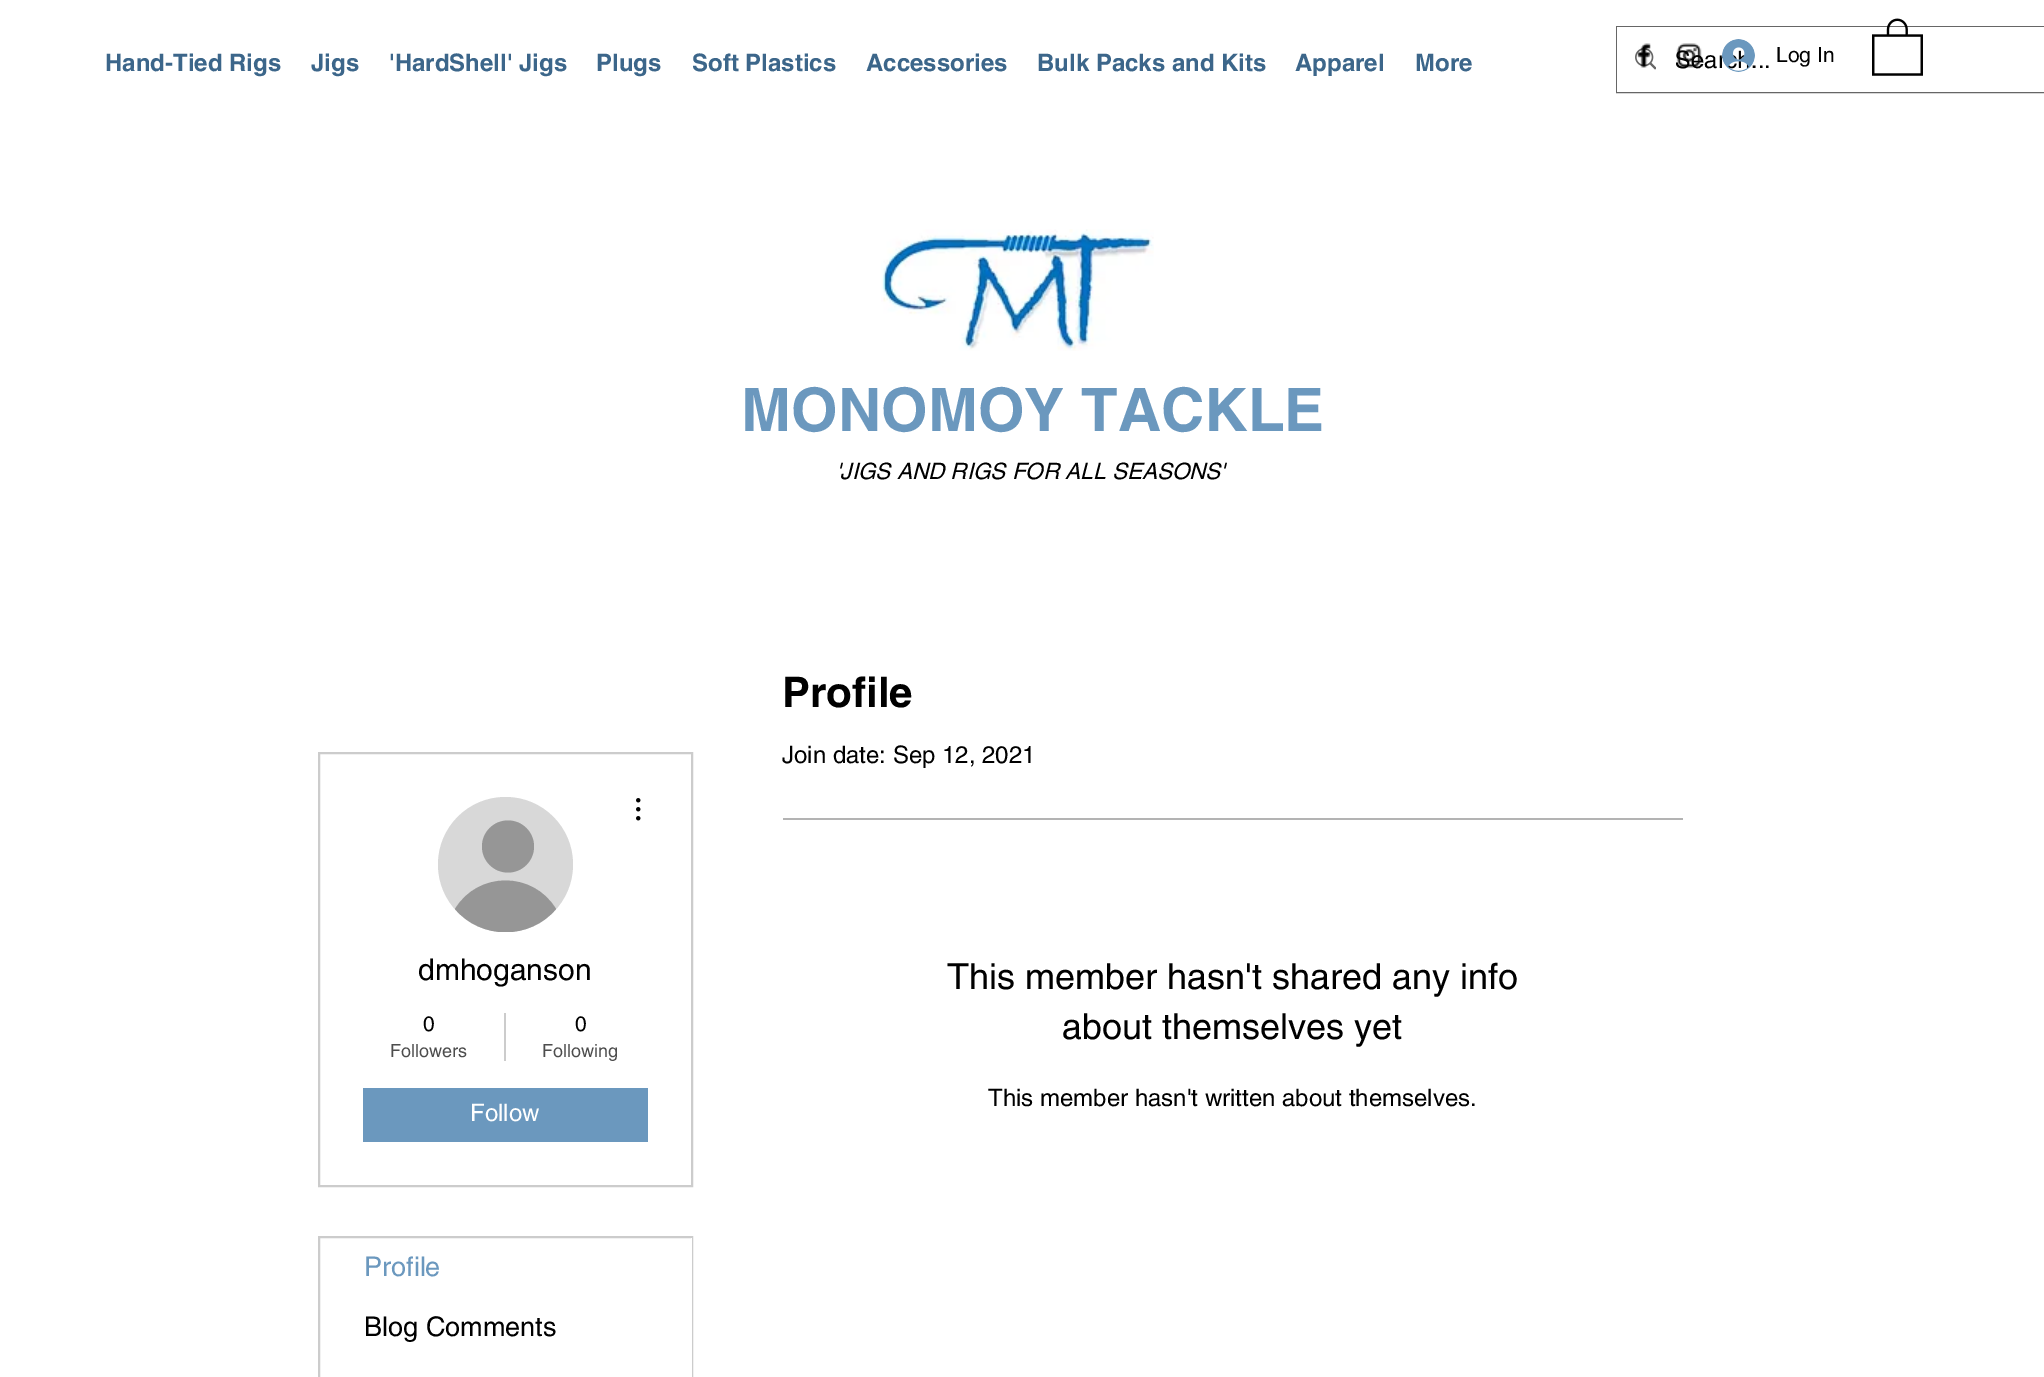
%!PS
<< /PageSize [2044 1377] >> setpagedevice
/rgb { dup -16 bitshift 255 div exch dup -8 bitshift 255 and 255 div exch 255 and 255 div setrgbcolor } def
/font { [ exch dup neg 0 0 3 -1 roll 0 0 ] selectfont } def
/text { moveto show } def
/circle { newpath 0 360 arc closepath } def
/picture { 5 dict begin { /h /w /y /x /name } { exch def } forall
  gsave x y translate w h scale
  w h 8 [w 0 0 h 0 0] name (r) file false 3 colorimage grestore end } def
0 1377 translate 1 -1 scale
4 setmiterlimit
/s1 { /helvetica-Bold 24 font 16#3C668A rgb } def
/s2 { /helvetica-Regular 24 font 16#000000 rgb } def
/s3 { /helvetica-Regular 21 font 16#000000 rgb } def
/s4 { /helvetica-Bold 60 font 16#6B98BE rgb } def
/s5 { /helvetica-Italic 22.5 font 16#000000 rgb } def
/s6 { /helvetica-Bold 42 font 16#000000 rgb } def
/s7 { /helvetica-Regular 36 font 16#000000 rgb } def
/s8 { /helvetica-Regular 30 font 16#000000 rgb } def
/s9 { /helvetica-Regular 18 font 16#4D4D4D rgb } def
/s10 { /helvetica-Regular 24 font 16#FFFFFF rgb } def
/s11 { /helvetica-Regular 27 font 16#6B98BE rgb } def
/s12 { /helvetica-Regular 27 font 16#000000 rgb } def
16#FFFFFF rgb
0 0 2044 1377 rectfill
s1
(Hand-Tied Rigs) 105 71 text
(Jigs) 311 71 text
('HardShell' Jigs) 389 71 text
(Plugs) 596 71 text
(Soft Plastics) 692 71 text
(Accessories) 866 71 text
(Bulk Packs and Kits) 1037 71 text
(Apparel) 1295 71 text
(More) 1415 71 text
16#666666 rgb
2 setlinewidth
1617 27 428 65 rectstroke
16#FFFFFF rgb
1617 27 427 65 rectfill
(pic1.raw) 1635 48 21 22 picture
s2
(Search...) 1675 68 text
(pic2.raw) 1637 43 14 25 picture
(pic3.raw) 1676 43 26 25 picture
(pic4.raw) 1722 39 33 33 picture
s3
(Log In) 1776 62 text
(pic5.raw) 1872 18 51 58 picture
(pic6.raw) 881 229 273 122 picture
s4
(MONOMOY TACKLE) 741 431 text
s5
('JIGS AND RIGS FOR ALL SEASONS') 836 479 text
s6
(Profile) 782 707 text
s2
(Join date: Sep 12, 2021) 782 763 text
16#B3B3B3 rgb
783 818 900 2 rectfill
s7
(This member hasn't shared any info) 947 989 text
(about themselves yet) 1062 1039 text
s2
(This member hasn't written about themselves.) 988 1106 text
16#CCCCCC rgb
319 753 373 433 rectstroke
16#D8D8D8 rgb
505.5 864.5 67.5 circle fill
16#969696 rgb
508 846.5 26 circle fill
gsave
438 797 135 135 rectclip
556 909 moveto 530 940 481 940 455 909 curveto 478 871 533 871 556 909 curveto closepath fill
grestore
(pic7.raw) 636 798 5 23 picture
s8
(dmhoganson) 418 980 text
s3
(0) 423 1031 text
s9
(Followers) 390 1057 text
16#CCCCCC rgb
504 1013 2 48 rectfill
s3
(0) 575 1031 text
s9
(Following) 542 1057 text
16#6B98BE rgb
363 1088 285 54 rectfill
s10
(Follow) 470 1121 text
16#CCCCCC rgb
319 1237 373 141 rectstroke
16#FFFFFF rgb
691 1238 1 139 rectfill
s11
(Profile) 364 1276 text
s12
(Blog Comments) 364 1336 text
showpage
